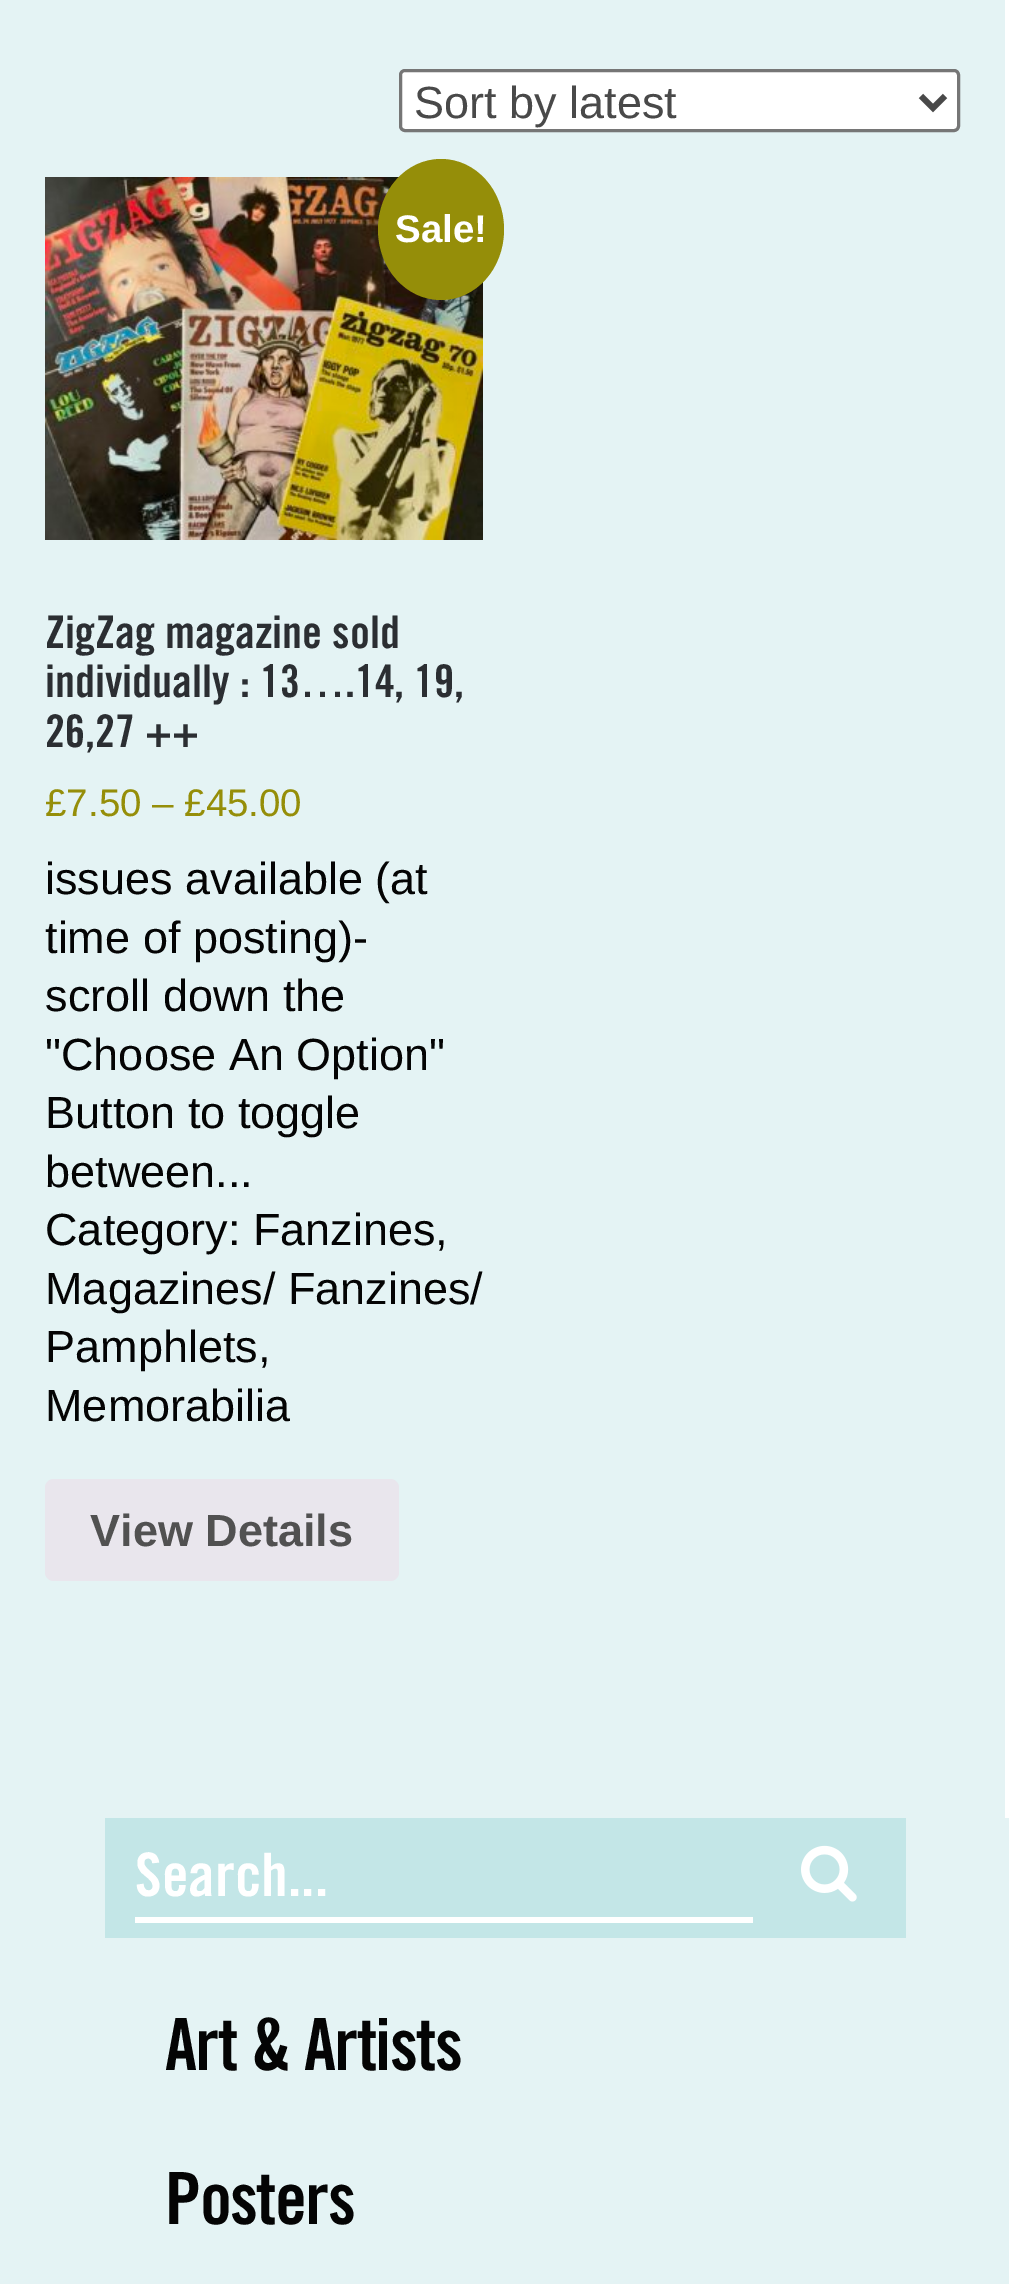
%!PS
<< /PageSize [1009 2284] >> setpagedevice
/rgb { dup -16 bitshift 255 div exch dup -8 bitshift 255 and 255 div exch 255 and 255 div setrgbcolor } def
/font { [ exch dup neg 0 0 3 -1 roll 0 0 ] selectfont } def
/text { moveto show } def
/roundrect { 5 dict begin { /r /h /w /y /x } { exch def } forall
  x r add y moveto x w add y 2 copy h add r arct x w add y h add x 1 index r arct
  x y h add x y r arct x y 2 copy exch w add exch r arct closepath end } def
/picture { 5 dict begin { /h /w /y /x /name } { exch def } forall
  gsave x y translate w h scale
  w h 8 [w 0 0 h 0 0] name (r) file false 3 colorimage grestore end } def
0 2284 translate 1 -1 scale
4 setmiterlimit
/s1 { /LiberationSans-Regular 45 font 16#494949 rgb } def
/s2 { /LiberationSans-Bold 38.5 font 16#FFFFFF rgb } def
/s3 { /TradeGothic-Bold 45 font 16#2B2E32 rgb } def
/s4 { /LiberationSans-Regular 38.5 font 16#958E09 rgb } def
/s5 { /LiberationSans-Regular 45 font 16#040404 rgb } def
/s6 { /LiberationSans-Bold 45 font 16#515151 rgb } def
/s7 { /TradeGothic-Bold 60 font 16#FFFFFF rgb } def
16#E4F3F4 rgb
0 0 1009 2284 rectfill
16#FFFFFF rgb
1005 0 4 1818 rectfill
400.5 70.5 558 60 4.5 roundrect gsave fill grestore
16#767676 rgb
3 setlinewidth
stroke
16#494949 rgb
6 setlinewidth
921 96 moveto 933 108 lineto 945 96 lineto stroke
s1
(Sort by latest) 414 118 text
(pic1.raw) 45 177 438 363 picture
16#958E09 rgb
441 159 moveto 476 159 504 190.5 504 229.5 curveto 504 268.5 476 300 441 300 curveto 406 300 378 268.5 378 229.5 curveto 378 190.5 406 159 441 159 curveto closepath fill
s2
(Sale!) 395 242 text
s3
(ZigZag magazine sold) 45 648 text
(individually : 13….14, 19,) 45 697 text
(26,27 ++) 45 747 text
s4
(£7.50 – £45.00) 45 816 text
s5
(issues available \(at) 45 894 text
(time of posting\)-) 45 953 text
(scroll down the) 45 1011 text
("Choose An Option") 45 1070 text
(Button to toggle) 45 1128 text
(between...) 45 1187 text
(Category: Fanzines,) 45 1245 text
(Magazines/ Fanzines/) 45 1304 text
(Pamphlets,) 45 1362 text
(Memorabilia) 45 1421 text
16#E9E6ED rgb
45 1479 354 102 9 roundrect fill
s6
(View Details) 90 1546 text
16#C3E6E7 rgb
105 1818 801 120 rectfill
16#FFFFFF rgb
135 1917 618 6 rectfill
s7
(Search...) 135 1896 text
(pic2.raw) 801 1845 56 57 picture
/TradeGothic-Bold 72 font
16#040404 rgb
165 2070 moveto -1.5 0 (Art & Artists) ashow
165 2224 moveto -1.5 0 (Posters) ashow
showpage
